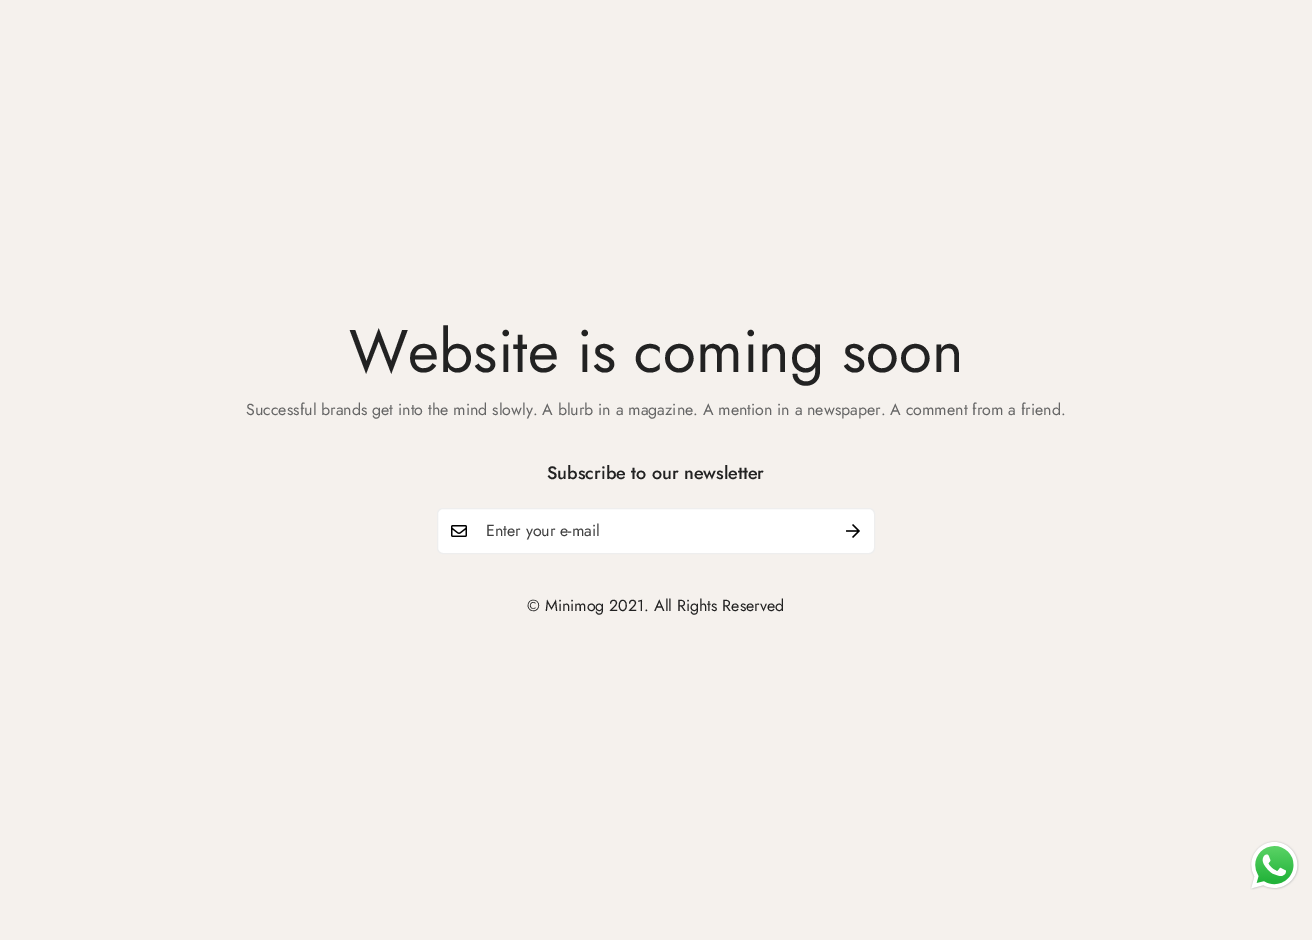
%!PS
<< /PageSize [1312 940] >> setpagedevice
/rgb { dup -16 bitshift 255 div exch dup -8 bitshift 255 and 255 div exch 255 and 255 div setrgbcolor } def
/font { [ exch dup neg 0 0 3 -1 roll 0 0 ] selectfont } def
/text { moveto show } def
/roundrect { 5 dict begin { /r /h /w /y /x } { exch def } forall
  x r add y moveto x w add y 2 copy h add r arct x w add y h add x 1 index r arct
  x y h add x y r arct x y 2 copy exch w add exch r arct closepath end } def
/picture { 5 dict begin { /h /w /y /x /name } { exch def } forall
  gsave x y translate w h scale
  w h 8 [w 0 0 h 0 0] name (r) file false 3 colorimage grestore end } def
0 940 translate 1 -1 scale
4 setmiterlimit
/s1 { /Jost-Regular 60 font 16#222222 rgb } def
/s2 { /Jost-Regular 16 font 16#666666 rgb } def
/s3 { /Jost-Medium 18 font 16#222222 rgb } def
/s4 { /Jost-Regular 16 font 16#404040 rgb } def
/s5 { /Jost-Regular 16 font 16#222222 rgb } def
16#F5F1ED rgb
0 0 1312 940 rectfill
s1
(Website is coming soon) 349 372 text
s2
(Successful brands get into the mind slowly. A blurb in a magazine. A mention in a newspaper. A comment from a friend.) 246 415 text
s3
(Subscribe to our newsletter) 547 479 text
16#FFFFFF rgb
437.5 508.5 437 45 5.5 roundrect gsave fill grestore
16#EEEEEE rgb
stroke
(pic1.raw) 451 525 16 12 picture
s4
(Enter your e-mail) 486 536 text
(pic2.raw) 846 524 14 14 picture
s5
(© Minimog 2021. All Rights Reserved) 527 611 text
(pic3.raw) 1250 840 49 50 picture
showpage
